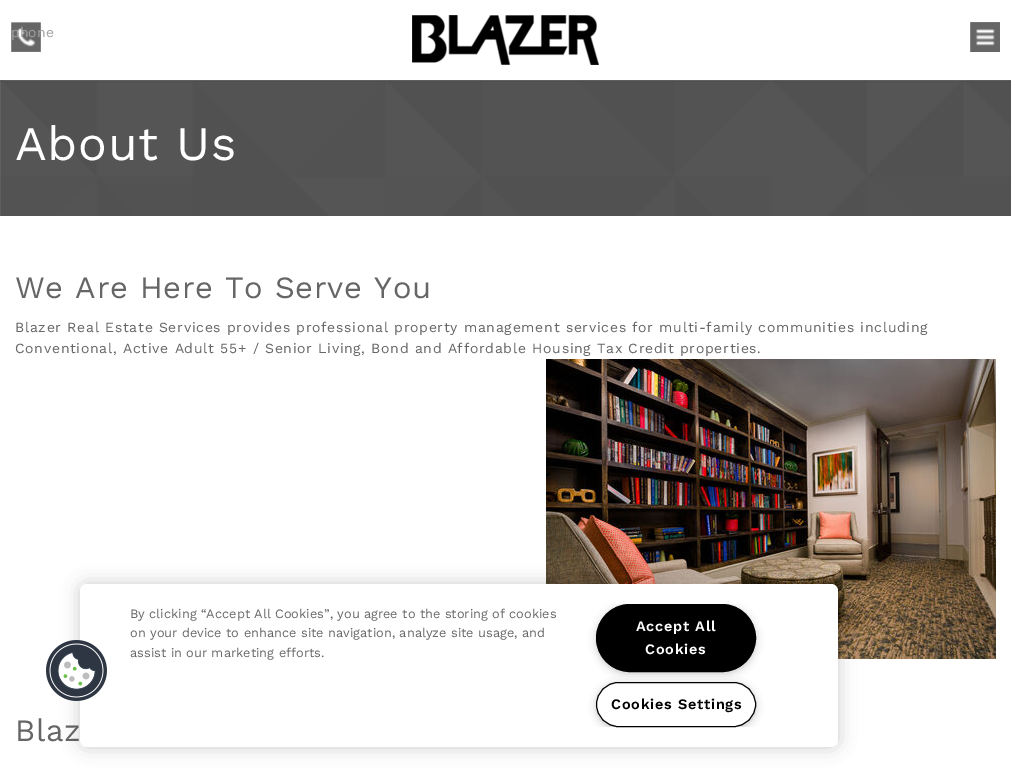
%!PS
<< /PageSize [1011 779] /PageUsesTransparency true >> setpagedevice
/rgb { dup -16 bitshift 255 div exch dup -8 bitshift 255 and 255 div exch 255 and 255 div setrgbcolor } def
/font { [ exch dup neg 0 0 3 -1 roll 0 0 ] selectfont } def
/text { moveto show } def
/alpha { dup .setfillconstantalpha .setstrokeconstantalpha } def
/roundrect { 5 dict begin { /r /h /w /y /x } { exch def } forall
  x r add y moveto x w add y 2 copy h add r arct x w add y h add x 1 index r arct
  x y h add x y r arct x y 2 copy exch w add exch r arct closepath end } def
/shadow { 12 dict begin { /a /b /q /h /w /y /x } { exch def } forall gsave /was 0 def
  9 -2 -9 { dup b mul 4 div /e exch def 1 sub .425 mul 2.718 exch exp 1 add a .99 .min exch div /now exch def
    1 1 now sub 1 was sub div sub alpha /was now def
    w h .min e 2 mul add 0 gt { x e sub y e sub w e 2 mul add h e 2 mul add
      q e add b .6 mul add w h .min 2 div e add .min 0 .max roundrect fill } if } for grestore end } def
/picture { 5 dict begin { /h /w /y /x /name } { exch def } forall
  gsave x y translate w h scale
  w h 8 [w 0 0 h 0 0] name (r) file false 3 colorimage grestore end } def
0 .pushpdf14devicefilter
0 779 translate 1 -1 scale
4 setmiterlimit
/s1 { /WorkSans-Regular 14 font 16#A1A1A1 rgb } def
/s2 { /WorkSans-Regular 12.8 font 16#666666 rgb } def
16#FFFFFF rgb
0 0 1011 779 rectfill
(pic1.raw) 11 22 30 30 picture
s1
(phone) 11 37 text
(pic2.raw) 412 15 187 50 picture
(pic3.raw) 970 22 30 30 picture
(pic4.raw) 0 80 1011 136 picture
/WorkSans-Regular 48 font
16#FFFFFF rgb
15 160 moveto 0.7 0 (About Us) ashow
/WorkSans-Regular 31 font
16#666666 rgb
15 298 moveto 0.7 0 (We Are Here To Serve You) ashow
/WorkSans-Regular 14 font
15 332 moveto 0.7 0 (Blazer Real Estate Services provides professional property management services for multi-family communities including) ashow
15 353 moveto 0.7 0 (Conventional, Active Adult 55+ / Senior Living, Bond and Affordable Housing Tax Credit properties.) ashow
(pic5.raw) 546 359 450 300 picture
/WorkSans-Regular 31 font
15 741 moveto 0.7 0 (Blaz) ashow
16#000000 rgb
80 584 758 163 7 9 0.2 shadow
16#FFFFFF rgb
80 584 758 163 7 roundrect fill
(pic6.raw) 46 640 61 61 picture
s2
(By clicking “Accept All Cookies”, you agree to the storing of cookies) 130 618 text
(on your device to enhance site navigation, analyze site usage, and) 130 637 text
(assist in our marketing efforts.) 130 657 text
gsave
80 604 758 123 rectclip
16#999999 rgb
599 609 154 62 31 5 1 shadow
grestore
16#000000 rgb
596.5 604.5 159 67 33.5 roundrect gsave fill grestore
stroke
/WorkSans-SemiBold 14.5 font
16#FFFFFF rgb
636 631 moveto 0.75 0 (Accept All) ashow
645 654 moveto 0.75 0 (Cookies) ashow
gsave
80 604 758 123 rectclip
16#999999 rgb
599 687 154 39 19.5 5 1 shadow
grestore
596.5 682.5 159 44 22 roundrect gsave fill grestore
16#000000 rgb
stroke
611 709 moveto 0.75 0 (Cookies Settings) ashow
.poppdf14devicefilter showpage
